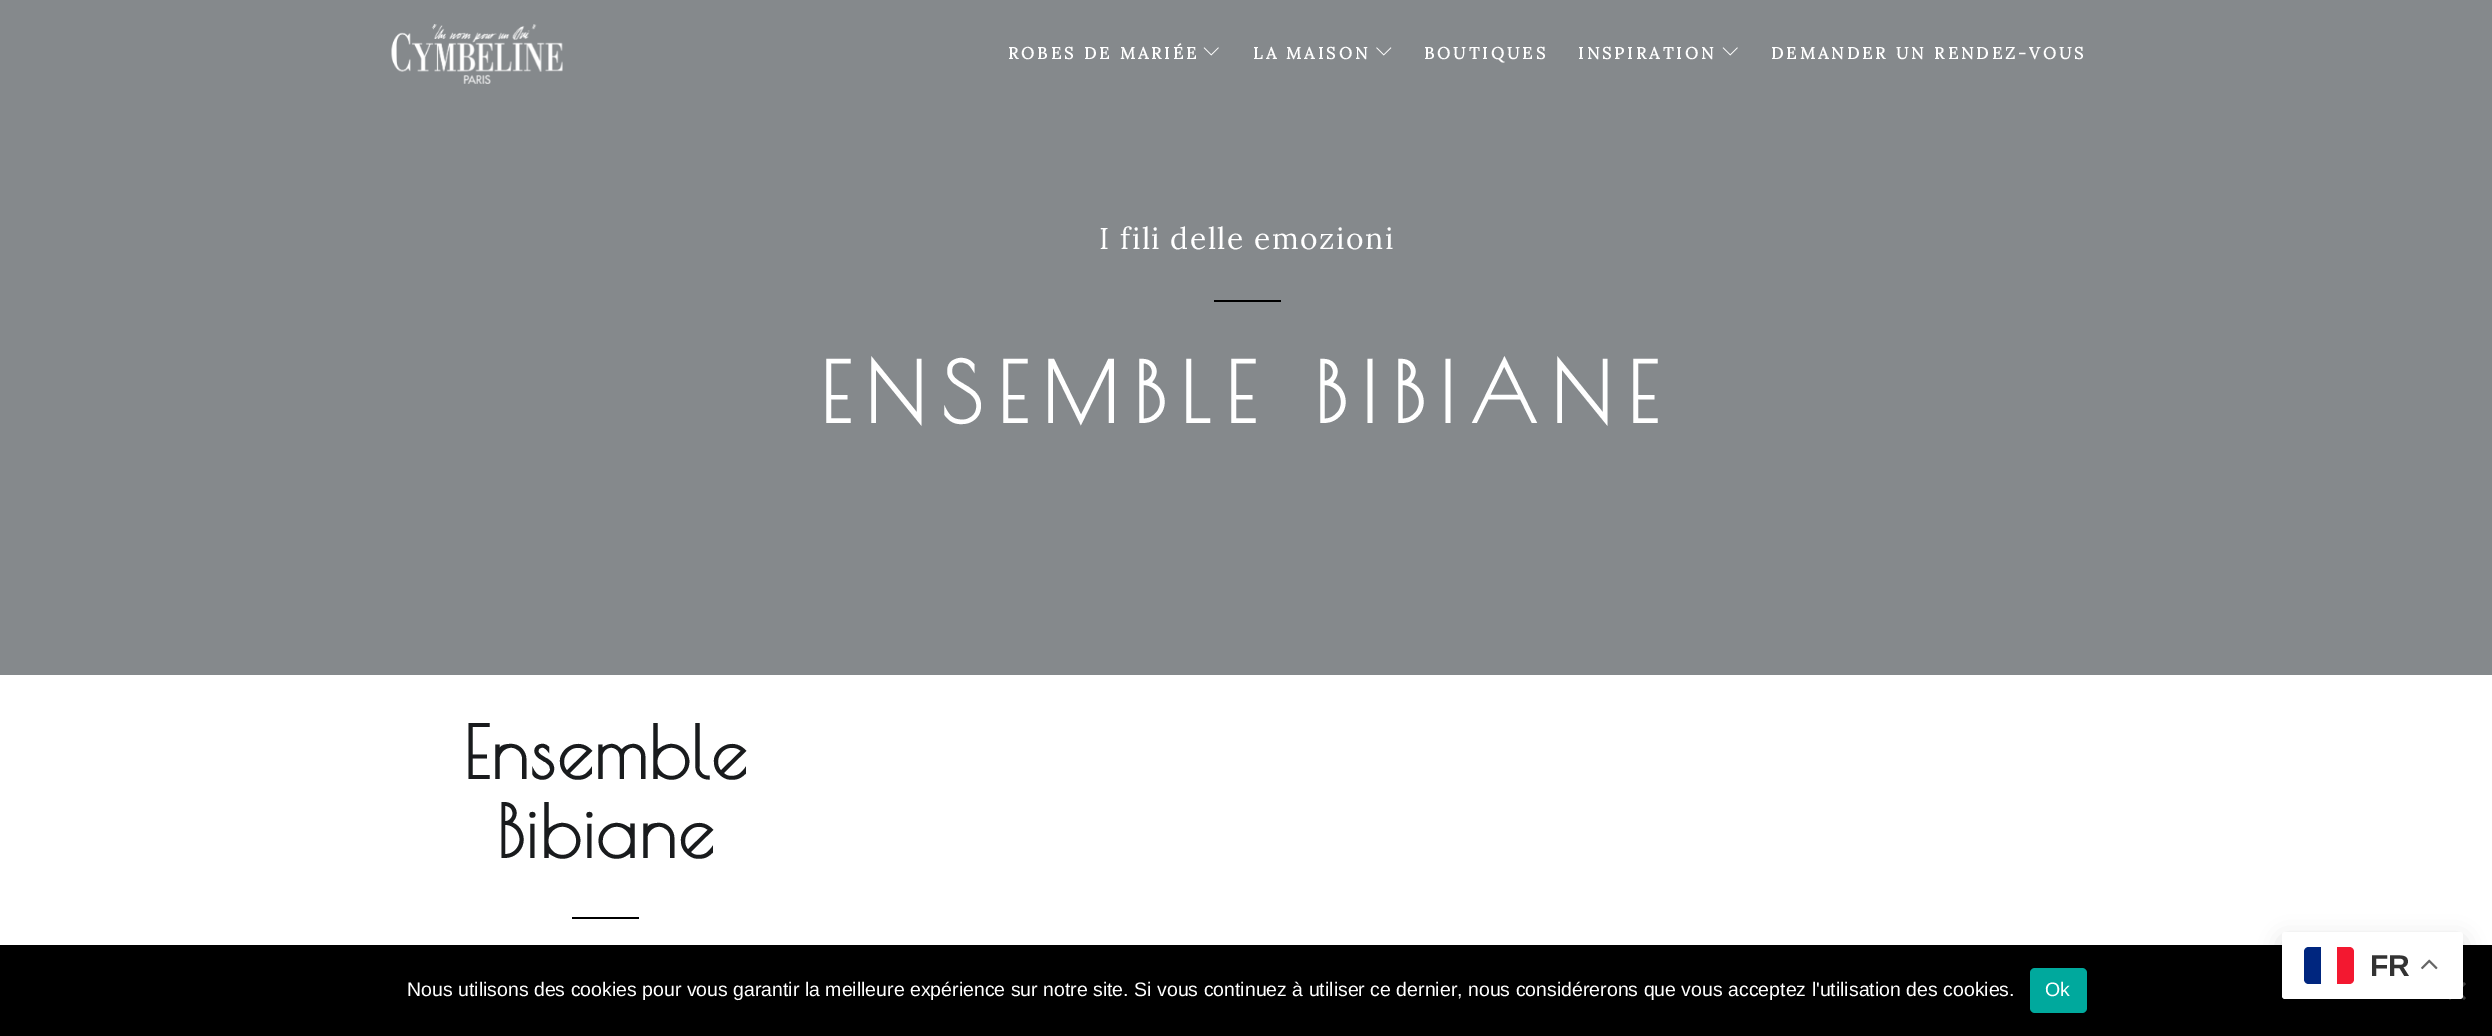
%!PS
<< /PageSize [2492 1036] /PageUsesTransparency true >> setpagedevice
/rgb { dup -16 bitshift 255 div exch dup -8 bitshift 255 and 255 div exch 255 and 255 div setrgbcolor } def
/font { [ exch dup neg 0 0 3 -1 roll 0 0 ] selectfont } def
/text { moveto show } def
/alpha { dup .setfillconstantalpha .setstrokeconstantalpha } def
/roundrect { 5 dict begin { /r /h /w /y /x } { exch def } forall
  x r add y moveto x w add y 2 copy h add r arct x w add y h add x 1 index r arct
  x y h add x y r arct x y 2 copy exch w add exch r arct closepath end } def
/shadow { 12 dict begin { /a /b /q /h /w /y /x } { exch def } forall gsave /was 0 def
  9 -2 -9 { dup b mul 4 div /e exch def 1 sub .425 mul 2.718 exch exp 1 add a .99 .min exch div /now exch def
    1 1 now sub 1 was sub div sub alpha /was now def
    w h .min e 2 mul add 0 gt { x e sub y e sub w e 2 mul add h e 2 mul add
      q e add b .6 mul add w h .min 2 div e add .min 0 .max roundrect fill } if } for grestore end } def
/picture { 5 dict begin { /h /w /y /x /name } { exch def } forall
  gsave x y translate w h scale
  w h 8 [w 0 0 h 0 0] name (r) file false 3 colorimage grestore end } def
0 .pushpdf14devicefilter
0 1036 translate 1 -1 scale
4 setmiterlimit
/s1 { /LiberationSans-Bold 30 font 16#333333 rgb } def
/s2 { /LiberationSans-Regular 19.5 font 16#FFFFFF rgb } def
16#85898C rgb
0 0 2492 1036 rectfill
(pic1.raw) 391 24 172 60 picture
/Lora-Bold 16.5 font
16#FFFFFF rgb
1008 59 moveto 3 0 (ROBES DE MARIÉE) ashow
(pic2.raw) 1203 47 16 9 picture
1253 59 moveto 3 0 (LA MAISON) ashow
(pic3.raw) 1376 47 16 9 picture
1424 59 moveto 3 0 (BOUTIQUES) ashow
1578 59 moveto 3 0 (INSPIRATION) ashow
(pic2.raw) 1722 47 16 9 picture
1771 59 moveto 3 0 (DEMANDER UN RENDEZ-VOUS) ashow
/Lora-Regular 30 font
1099 249 moveto 1.5 0 (I fili delle emozioni) ashow
16#000000 rgb
1214 300 67 2 rectfill
/PoiretOne-Bold 82.5 font
16#FFFFFF rgb
820 423 moveto 15 0 (ENSEMBLE BIBIANE) ashow
0 675 2492 270 rectfill
/PoiretOne-Bold 72 font
16#191B1D rgb
463 779 moveto 1.5 0 (Ensemble) ashow
496 858 moveto 1.5 0 (Bibiane) ashow
16#000000 rgb
572 917 67 2 rectfill
0 945 2492 91 rectfill
16#404040 rgb
2464 982 moveto 2466 984 lineto 2450 1000 lineto 2448 998 lineto closepath fill
2448 984 moveto 2450 982 lineto 2466 998 lineto 2464 1000 lineto closepath fill
16#000000 rgb
2282 939 181 68 3 11 0.15 shadow
16#FFFFFF rgb
2282 932 181 67 3 roundrect fill
16#00267F rgb
2309 947 moveto 2321 947 lineto 2321 984 lineto 2309 984 lineto 2306 984 2304 982 2304 979 curveto 2304 952 lineto 2304 949 2306 947 2309 947 curveto closepath fill
16#F31830 rgb
2337 947 moveto 2349 947 lineto 2352 947 2354 949 2354 952 curveto 2354 979 lineto 2354 982 2352 984 2349 984 curveto 2337 984 lineto closepath fill
s1
(FR) 2370 976 text
(pic4.raw) 2421 959 17 11 picture
s2
(Nous utilisons des cookies pour vous garantir la meilleure expérience sur notre site. Si vous continuez à utiliser ce dernier, nous considérerons que vous acceptez l'utilisation des cookies.) 407 996 text
16#00A99D rgb
2030 968 57 45 5 roundrect fill
s2
(Ok) 2045 996 text
.poppdf14devicefilter showpage
